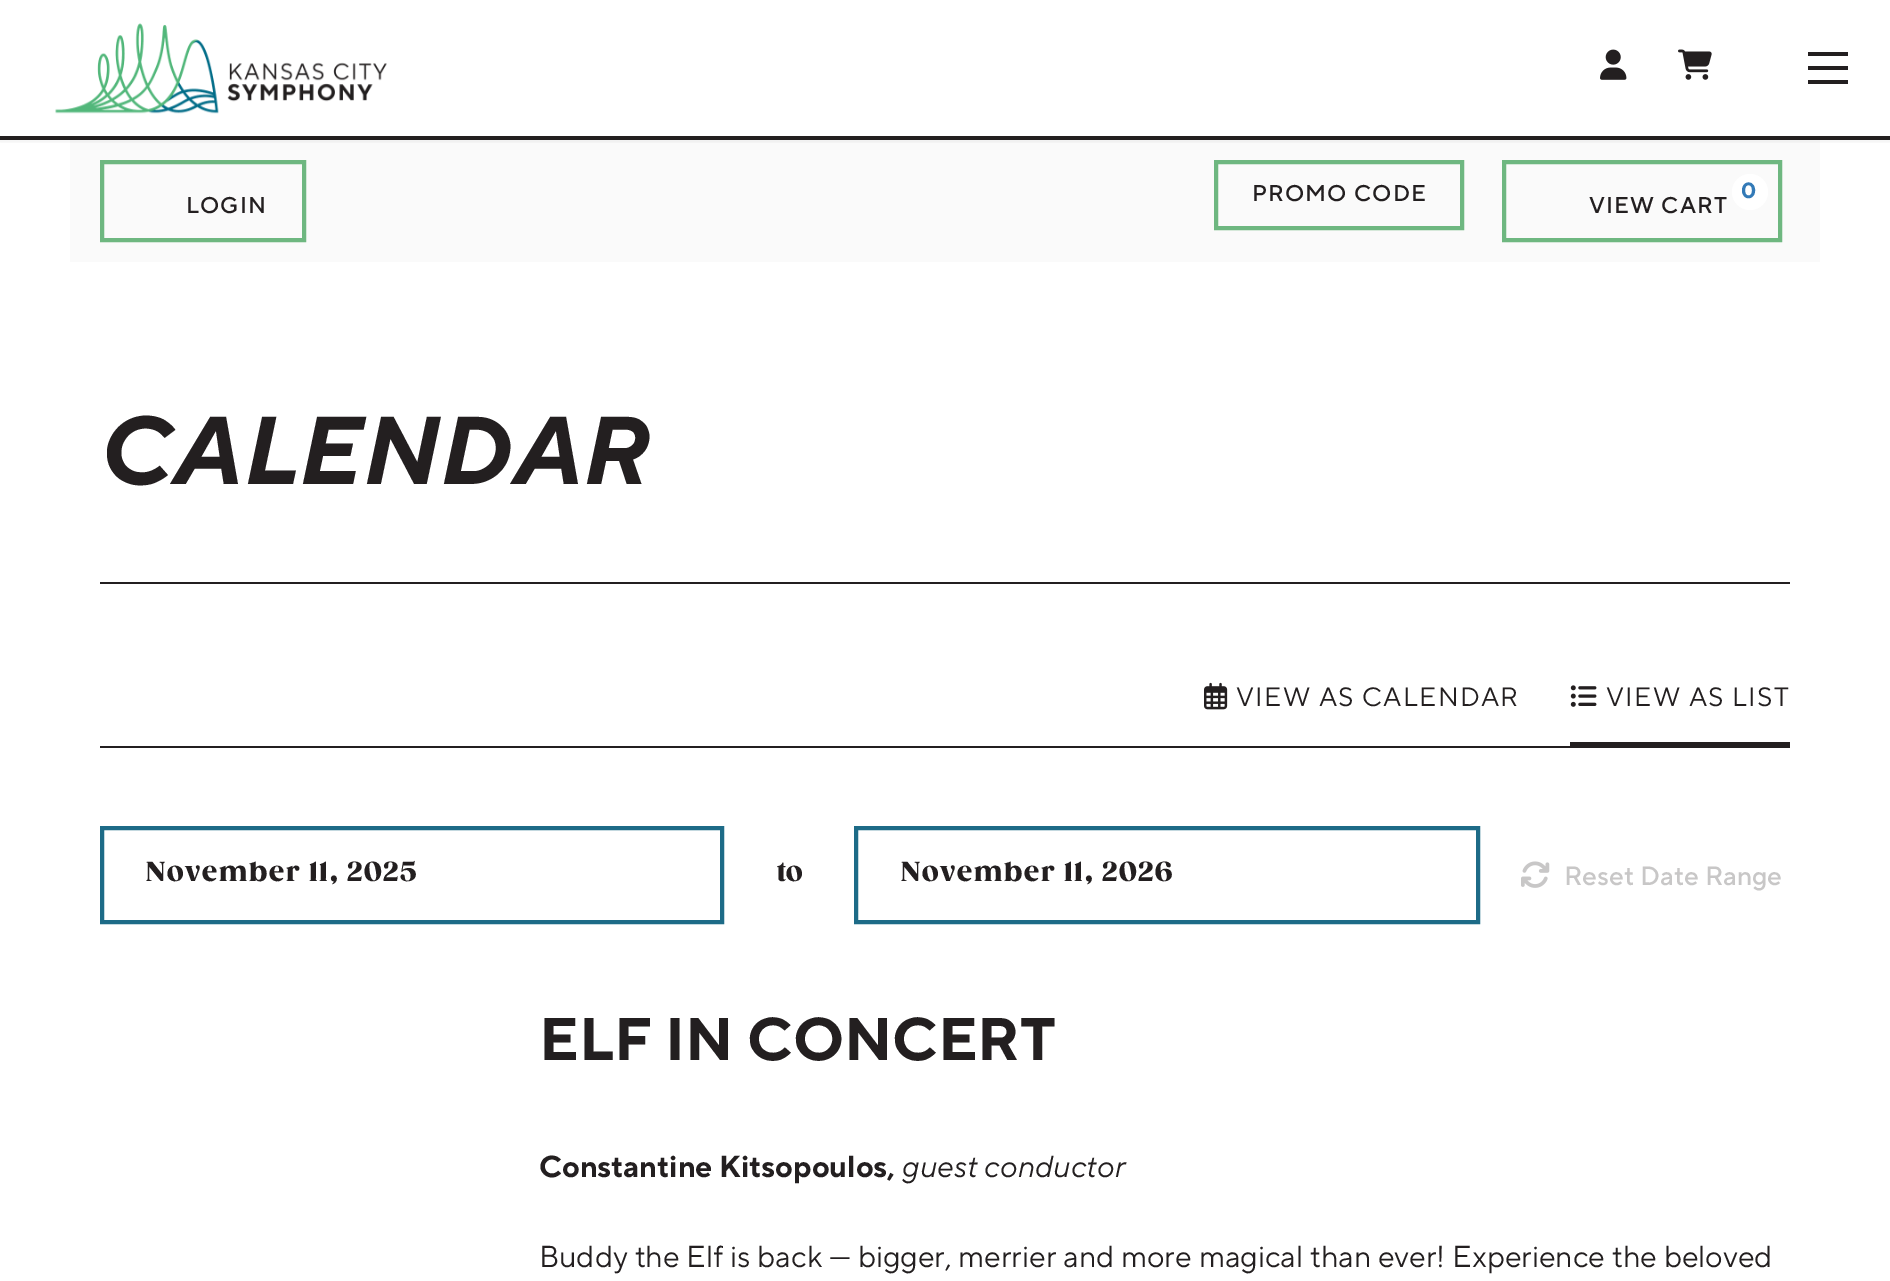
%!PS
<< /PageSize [1890 1281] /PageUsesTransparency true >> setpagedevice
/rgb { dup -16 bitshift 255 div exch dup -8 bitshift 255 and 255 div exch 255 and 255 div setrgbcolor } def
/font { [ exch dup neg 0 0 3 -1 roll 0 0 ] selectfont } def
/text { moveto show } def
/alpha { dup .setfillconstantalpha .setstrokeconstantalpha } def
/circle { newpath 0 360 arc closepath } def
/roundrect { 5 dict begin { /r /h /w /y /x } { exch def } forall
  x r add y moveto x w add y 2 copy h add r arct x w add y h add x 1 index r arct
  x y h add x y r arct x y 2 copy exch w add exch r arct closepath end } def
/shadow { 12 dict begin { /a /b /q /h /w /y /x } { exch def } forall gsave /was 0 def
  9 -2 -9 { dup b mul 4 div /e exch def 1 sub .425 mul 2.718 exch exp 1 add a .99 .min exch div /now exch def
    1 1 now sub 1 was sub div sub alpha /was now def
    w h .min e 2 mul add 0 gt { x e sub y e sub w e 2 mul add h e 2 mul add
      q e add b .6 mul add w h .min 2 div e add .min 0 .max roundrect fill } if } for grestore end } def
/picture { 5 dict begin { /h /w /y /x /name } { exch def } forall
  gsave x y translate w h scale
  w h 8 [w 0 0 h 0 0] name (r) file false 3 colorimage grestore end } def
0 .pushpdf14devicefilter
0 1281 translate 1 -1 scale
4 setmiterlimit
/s1 { /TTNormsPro-BoldItalic 96 font 16#231F20 rgb } def
/s2 { /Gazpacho-BlackItalic 26.5 font 16#231F20 rgb } def
/s3 { /TTNormsPro-Medium 26.5 font 16#C8C7C7 rgb } def
/s4 { /TTNormsPro-Bold 60 font 16#231F20 rgb } def
/s5 { /TTNormsPro-Bold 30.2 font 16#231F20 rgb } def
/s6 { /TTNormsPro-Italic 30.2 font 16#231F20 rgb } def
/s7 { /TTNormsPro-Regular 30.2 font 16#231F20 rgb } def
16#FFFFFF rgb
0 0 1890 1281 rectfill
16#231F20 rgb
0 136 1890 4 rectfill
16#FAFAFA rgb
70 140 1750 122 rectfill
gsave
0 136 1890 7 rectclip
16#231F20 rgb
0 0 1890 136 0 5 0.25 shadow
grestore
(pic1.raw) 55 23 332 91 picture
(pic2.raw) 1600 49 27 31 picture
(pic3.raw) 1678 49 34 31 picture
16#231F20 rgb
1808 52 40 4 rectfill
1808 66 40 4 rectfill
1808 80 40 4 rectfill
16#6EB780 rgb
4 setlinewidth
102 162 202 78 rectstroke
/TTNormsPro-Medium 22.75 font
16#231F20 rgb
186 213 moveto 1.1 0 (LOGIN) ashow
16#6EB780 rgb
1216 162 246 66 rectstroke
16#231F20 rgb
1252 201 moveto 1.1 0 (PROMO CODE) ashow
16#6EB780 rgb
1504 162 276 78 rectstroke
16#FFFFFF rgb
1750 192 18 circle fill
/TTNormsPro-Bold 22 font
16#337AB7 rgb
1741 198 moveto 1.1 0 (0) ashow
/TTNormsPro-Medium 22.75 font
16#231F20 rgb
1589 213 moveto 1.1 0 (VIEW CART) ashow
s1
(CALENDAR) 100 484 text
100 582 1690 2 rectfill
100 746 1690 2 rectfill
(pic4.raw) 1204 682 24 28 picture
/TTNormsPro-Regular 26.5 font
1236 706 moveto 1.3 0 (VIEW AS CALENDAR) ashow
1570 742 220 4 rectfill
(pic5.raw) 1570 685 27 22 picture
1606 706 moveto 1.3 0 (VIEW AS LIST) ashow
16#1D6B87 rgb
102 828 620 94 rectstroke
/Gazpacho-BlackItalic 26.5 font
16#231F20 rgb
146 881 moveto 1.75 0 (November 11, 2025) ashow
(to) 777 881 text
16#1D6B87 rgb
856 828 622 94 rectstroke
16#231F20 rgb
901 881 moveto 1.75 0 (November 11, 2026) ashow
(pic6.raw) 1521 861 29 27 picture
s3
(Reset Date Range) 1564 885 text
s4
(ELF IN CONCERT) 539 1060 text
s5
(Constantine Kitsopoulos,) 539 1177 text
s6
(guest conductor) 902 1177 text
s7
(Buddy the Elf is back — bigger, merrier and more magical than ever! Experience the beloved) 539 1267 text
.poppdf14devicefilter showpage
